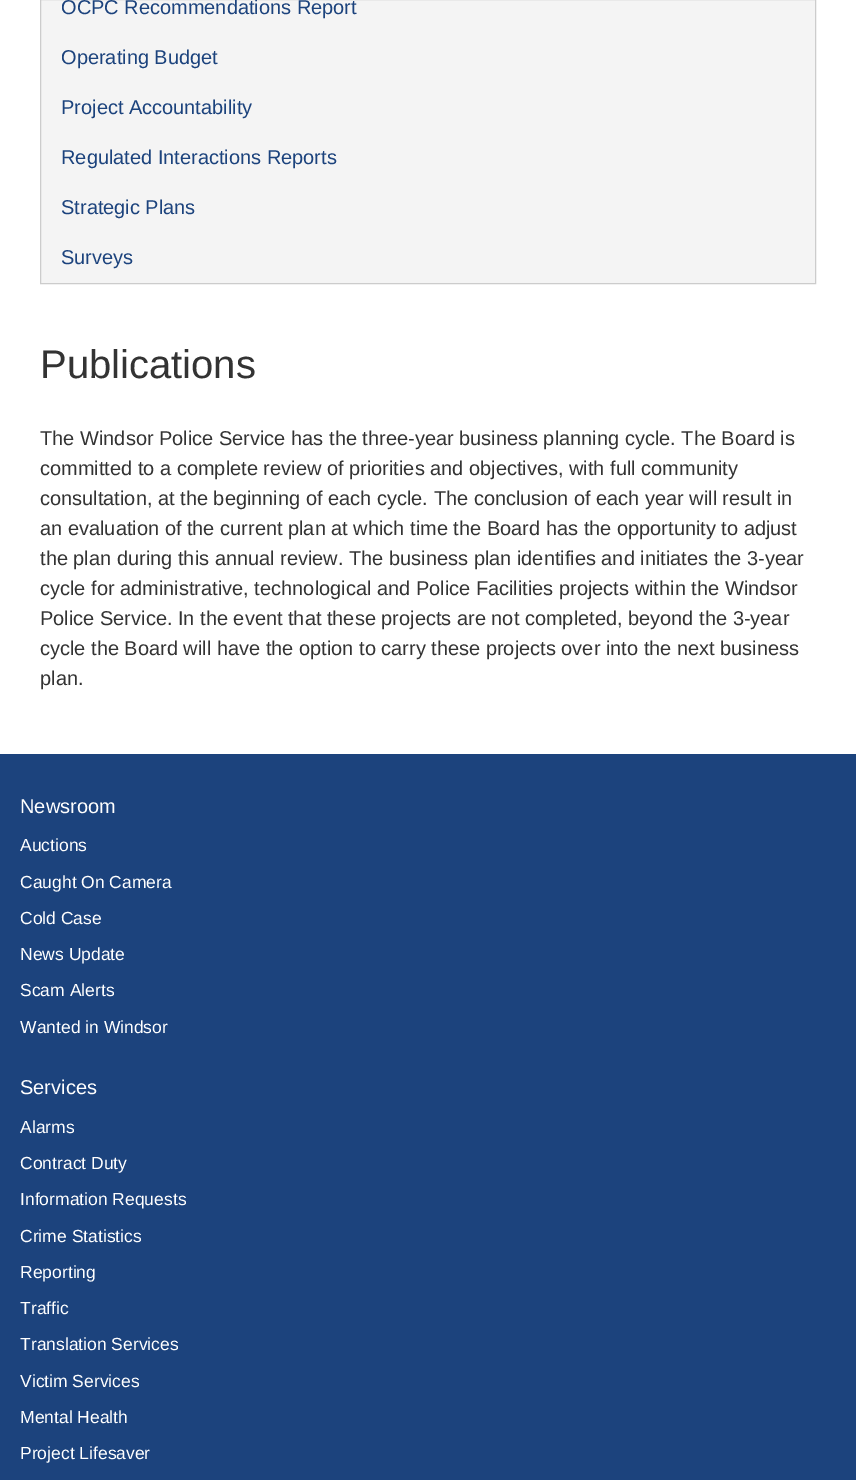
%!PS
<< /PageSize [856 1480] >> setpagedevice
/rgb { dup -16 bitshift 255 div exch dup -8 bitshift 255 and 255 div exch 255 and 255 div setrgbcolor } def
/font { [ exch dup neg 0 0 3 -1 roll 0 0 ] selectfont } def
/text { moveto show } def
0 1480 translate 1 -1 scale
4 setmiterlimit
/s1 { /LiberationSans-Regular 20 font 16#1C437D rgb } def
/s2 { /LiberationSans-Regular 40 font 16#333333 rgb } def
/s3 { /LiberationSans-Regular 20 font 16#333333 rgb } def
/s4 { /LiberationSans-Regular 20 font 16#FFFFFF rgb } def
/s5 { /LiberationSans-Regular 17.5 font 16#FFFFFF rgb } def
16#FFFFFF rgb
0 0 856 1480 rectfill
16#F4F4F4 rgb
40.5 -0.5 moveto 815.5 -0.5 lineto 815.5 283.5 lineto 40.5 283.5 lineto closepath gsave fill grestore
16#CCCCCC rgb
stroke
s1
(OCPC Recommendations Report) 61 14 text
(Operating Budget) 61 64 text
(Project Accountability) 61 114 text
(Regulated Interactions Reports) 61 164 text
(Strategic Plans) 61 214 text
(Surveys) 61 264 text
s2
(Publications) 40 378 text
s3
(The Windsor Police Service has the three-year business planning cycle. The Board is) 40 445 text
(committed to a complete review of priorities and objectives, with full community) 40 475 text
(consultation, at the beginning of each cycle. The conclusion of each year will result in) 40 505 text
(an evaluation of the current plan at which time the Board has the opportunity to adjust) 40 535 text
(the plan during this annual review. The business plan identifies and initiates the 3-year) 40 565 text
(cycle for administrative, technological and Police Facilities projects within the Windsor) 40 595 text
(Police Service. In the event that these projects are not completed, beyond the 3-year) 40 625 text
(cycle the Board will have the option to carry these projects over into the next business) 40 655 text
(plan.) 40 685 text
16#1C437D rgb
0 754 856 726 rectfill
s4
(Newsroom) 20 813 text
s5
(Auctions) 20 851 text
(Caught On Camera) 20 888 text
(Cold Case) 20 924 text
(News Update) 20 960 text
(Scam Alerts) 20 996 text
(Wanted in Windsor) 20 1033 text
s4
(Services) 20 1094 text
s5
(Alarms) 20 1133 text
(Contract Duty) 20 1169 text
(Information Requests) 20 1205 text
(Crime Statistics) 20 1242 text
(Reporting) 20 1278 text
(Traffic) 20 1314 text
(Translation Services) 20 1350 text
(Victim Services) 20 1387 text
(Mental Health) 20 1423 text
(Project Lifesaver) 20 1459 text
showpage
